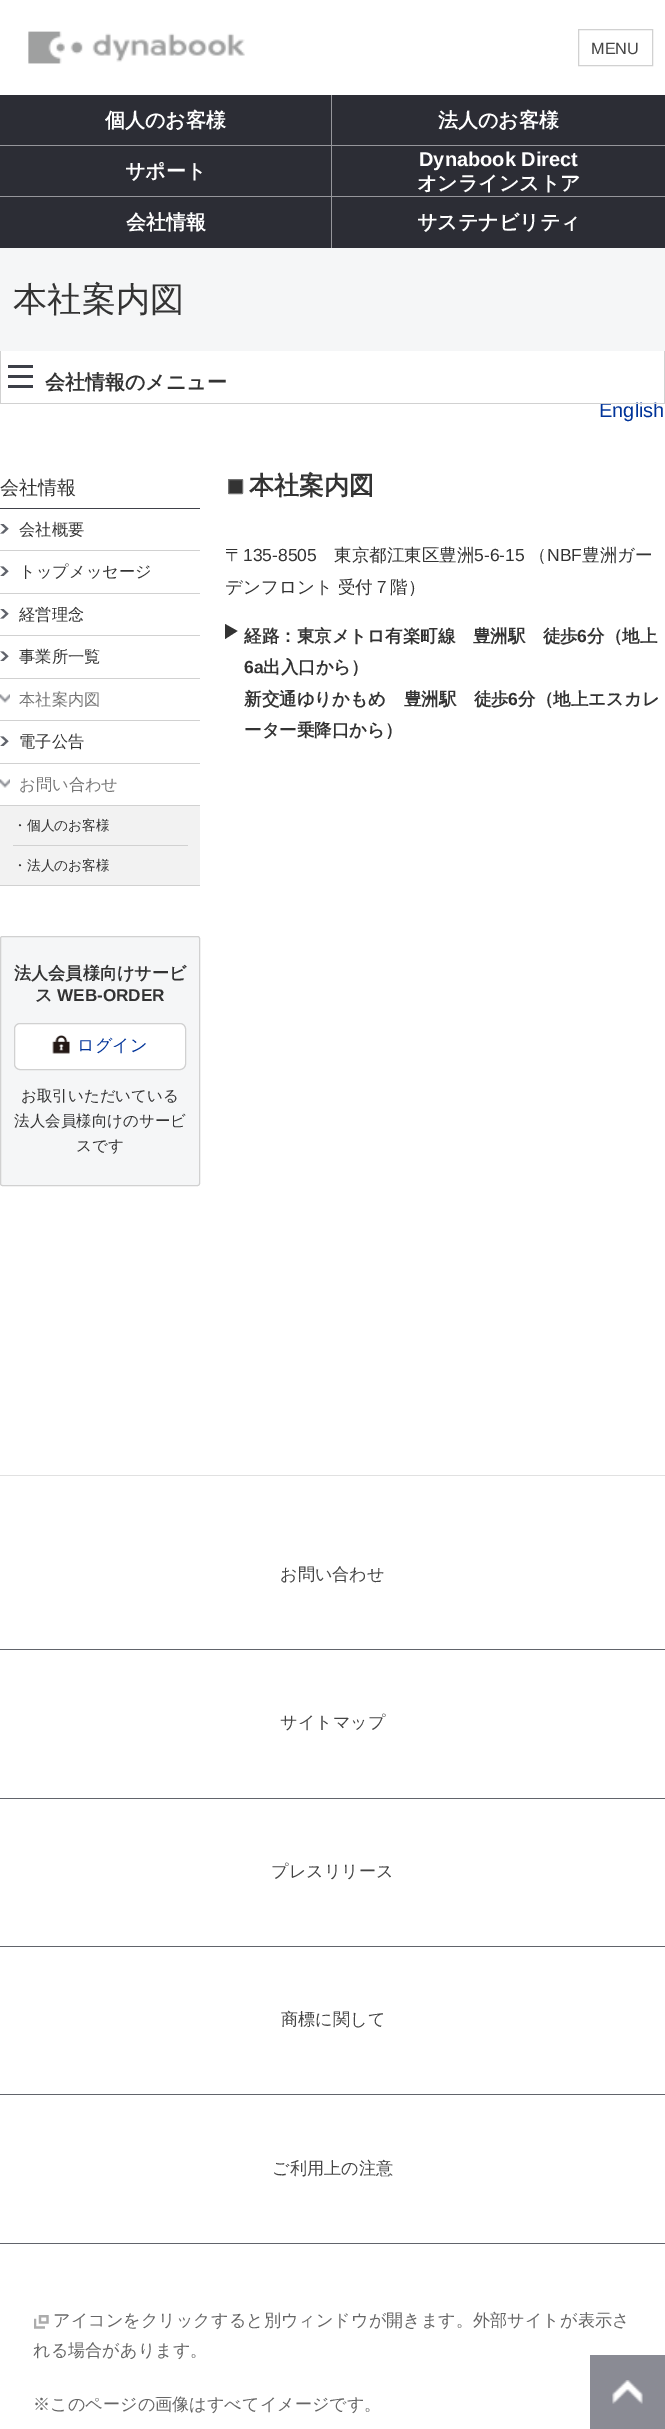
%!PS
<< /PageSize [665 2429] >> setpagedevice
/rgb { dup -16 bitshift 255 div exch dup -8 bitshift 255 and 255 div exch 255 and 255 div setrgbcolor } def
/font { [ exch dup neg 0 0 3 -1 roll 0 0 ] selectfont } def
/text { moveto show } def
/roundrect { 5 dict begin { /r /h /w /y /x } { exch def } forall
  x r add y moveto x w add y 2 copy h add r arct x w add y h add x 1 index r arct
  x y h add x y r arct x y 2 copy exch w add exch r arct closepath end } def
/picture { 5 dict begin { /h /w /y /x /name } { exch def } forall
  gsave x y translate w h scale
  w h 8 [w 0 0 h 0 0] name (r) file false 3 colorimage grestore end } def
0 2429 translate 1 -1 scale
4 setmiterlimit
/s1 { /LiberationSans-Regular 16.25 font 16#444444 rgb } def
/s2 { /WenQuanYiZenHei-Bold 20 font 16#FFFFFF rgb } def
/s3 { /LiberationSans-Bold 20 font 16#FFFFFF rgb } def
/s4 { /WenQuanYiZenHei-Medium 34.25 font 16#333333 rgb } def
/s5 { /LiberationSans-Regular 20 font 16#003399 rgb } def
/s6 { /WenQuanYiZenHei-Bold 20 font 16#333333 rgb } def
/s7 { /WenQuanYiZenHei-Medium 19 font 16#333333 rgb } def
/s8 { /WenQuanYiZenHei-Medium 16.25 font 16#333333 rgb } def
/s9 { /WenQuanYiZenHei-Medium 16.25 font 16#777777 rgb } def
/s10 { /WenQuanYiZenHei-Medium 13.75 font 16#333333 rgb } def
/s11 { /WenQuanYiZenHei-Bold 17.15 font 16#333333 rgb } def
/s12 { /LiberationSans-Bold 17.15 font 16#333333 rgb } def
/s13 { /WenQuanYiZenHei-Medium 17.15 font 16#003399 rgb } def
/s14 { /WenQuanYiZenHei-Medium 15.5 font 16#333333 rgb } def
/s15 { /WenQuanYiZenHei-Bold 25 font 16#333333 rgb } def
/s16 { /WenQuanYiZenHei-Medium 17.5 font 16#333333 rgb } def
/s17 { /LiberationSans-Regular 17.5 font 16#333333 rgb } def
/s18 { /WenQuanYiZenHei-Bold 17.5 font 16#333333 rgb } def
/s19 { /LiberationSans-Bold 17.5 font 16#333333 rgb } def
/s20 { /WenQuanYiZenHei-Medium 17.15 font 16#444444 rgb } def
/s21 { /WenQuanYiZenHei-Medium 17.15 font 16#666666 rgb } def
16#FFFFFF rgb
0 0 665 2429 rectfill
(pic1.raw) 28 31 217 33 picture
16#D1D1D1 rgb
578.5 29.5 74 36 rectstroke
s1
(MENU) 591 54 text
16#2C2D35 rgb
0 95 665 153 rectfill
16#96969B rgb
331 95 1 50 rectfill
s2
(個人のお客様) 105 127 text
(法人のお客様) 438 127 text
16#96969B rgb
0 145 665 1 rectfill
331 145 1 51 rectfill
s2
(サポート) 125 178 text
s3
(Dynabook Direct) 419 166 text
s2
(オンラインストア) 417 190 text
16#96969B rgb
0 196 665 1 rectfill
331 196 1 52 rectfill
s2
(会社情報) 126 229 text
(サステナビリティ) 417 229 text
16#F5F6F7 rgb
0 248 665 103 rectfill
s4
(本社案内図) 13 311 text
16#D1D1D1 rgb
664 351 1 53 rectfill
s5
(English) 599 417 text
16#D1D1D1 rgb
0 403 665 1 rectfill
0 351 1 53 rectfill
16#3C3F47 rgb
8 365 25 3 rectfill
8 375 25 3 rectfill
s6
(会社情報のメニュー) 45 389 text
16#3C3F47 rgb
8 385 25 3 rectfill
s7
(会社情報) 0 494 text
16#404149 rgb
0 508 200 1 rectfill
16#D1D1D1 rgb
0 550 200 1 rectfill
(pic2.raw) 0 524 9 10 picture
s8
(会社概要) 19 535 text
16#D1D1D1 rgb
0 593 200 1 rectfill
(pic3.raw) 0 566 9 10 picture
s8
(トップメッセージ) 19 577 text
16#D1D1D1 rgb
0 635 200 1 rectfill
(pic2.raw) 0 609 9 10 picture
s8
(経営理念) 19 620 text
16#D1D1D1 rgb
0 678 200 1 rectfill
(pic3.raw) 0 651 9 10 picture
s8
(事業所一覧) 19 662 text
16#D1D1D1 rgb
0 720 200 1 rectfill
(pic4.raw) 0 694 10 9 picture
s9
(本社案内図) 19 705 text
16#D1D1D1 rgb
0 763 200 1 rectfill
(pic3.raw) 0 736 9 10 picture
s8
(電子公告) 19 747 text
16#D1D1D1 rgb
0 885 200 1 rectfill
(pic5.raw) 0 779 10 9 picture
s9
(お問い合わせ) 19 790 text
16#F2F2F2 rgb
0 806 200 79 rectfill
16#D1D1D1 rgb
0 805 200 1 rectfill
s10
(・個人のお客様) 13 830 text
16#D1D1D1 rgb
13 845 175 1 rectfill
s10
(・法人のお客様) 13 870 text
16#F5F6F7 rgb
0.5 936.5 199 249 2 roundrect gsave fill grestore
16#D1D1D1 rgb
stroke
s11
(法人会員様向けサービ) 14 979 text
(ス) 35 1001 text
s12
(WEB-ORDER) 57 1001 text
16#FFFFFF rgb
14.5 1023.5 171 46 5.5 roundrect gsave fill grestore
16#D1D1D1 rgb
stroke
(pic6.raw) 52 1035 18 19 picture
s13
(ログイン) 77 1051 text
s14
(お取引いただいている) 21 1101 text
(法人会員様向けのサービ) 14 1126 text
(スです) 76 1151 text
228.5 479.5 14 14 0.5 roundrect gsave fill grestore
16#747474 rgb
stroke
s15
(本社案内図) 249 494 text
s16
(〒) 225 561 text
s17
(135-8505) 243 561 text
s16
(東京都江東区豊洲) 334 561 text
s17
(5-6-15) 474 561 text
s16
(（) 529 561 text
s17
(NBF) 547 561 text
s16
(豊洲ガー) 582 561 text
(デンフロント 受付７階）) 225 593 text
225 639 moveto 225 624 lineto 237.5 631 lineto closepath fill
s18
(経路：東京メトロ有楽町線　豊洲駅　徒歩) 244 642 text
s19
(6) 577 642 text
s18
(分（地上) 587 642 text
s19
(6a) 244 673 text
s18
(出入口から）) 263 673 text
(新交通ゆりかもめ　豊洲駅　徒歩) 244 705 text
s19
(6) 508 705 text
s18
(分（地上エスカレ) 518 705 text
(ーター乗降口から）) 244 736 text
16#E1E1E1 rgb
0 1475 665 1 rectfill
16#61646B rgb
0 1649 665 1 rectfill
s20
(お問い合わせ) 280 1580 text
16#61646B rgb
0 1798 665 1 rectfill
s20
(サイトマップ) 280 1728 text
16#61646B rgb
0 1946 665 1 rectfill
s20
(プレスリリース) 271 1877 text
16#61646B rgb
0 2094 665 1 rectfill
s20
(商標に関して) 281 2025 text
16#61646B rgb
0 2243 665 1 rectfill
s20
(ご利用上の注意) 272 2174 text
(pic7.raw) 34 2315 15 14 picture
s21
(アイコンをクリックすると別ウィンドウが開きます。外部サイトが表示さ) 53 2326 text
(れる場合があります。) 33 2356 text
(※このページの画像はすべてイメージです。) 33 2410 text
16#8A8B94 rgb
590 2355 75 74 rectfill
(pic8.raw) 612 2380 31 24 picture
showpage
